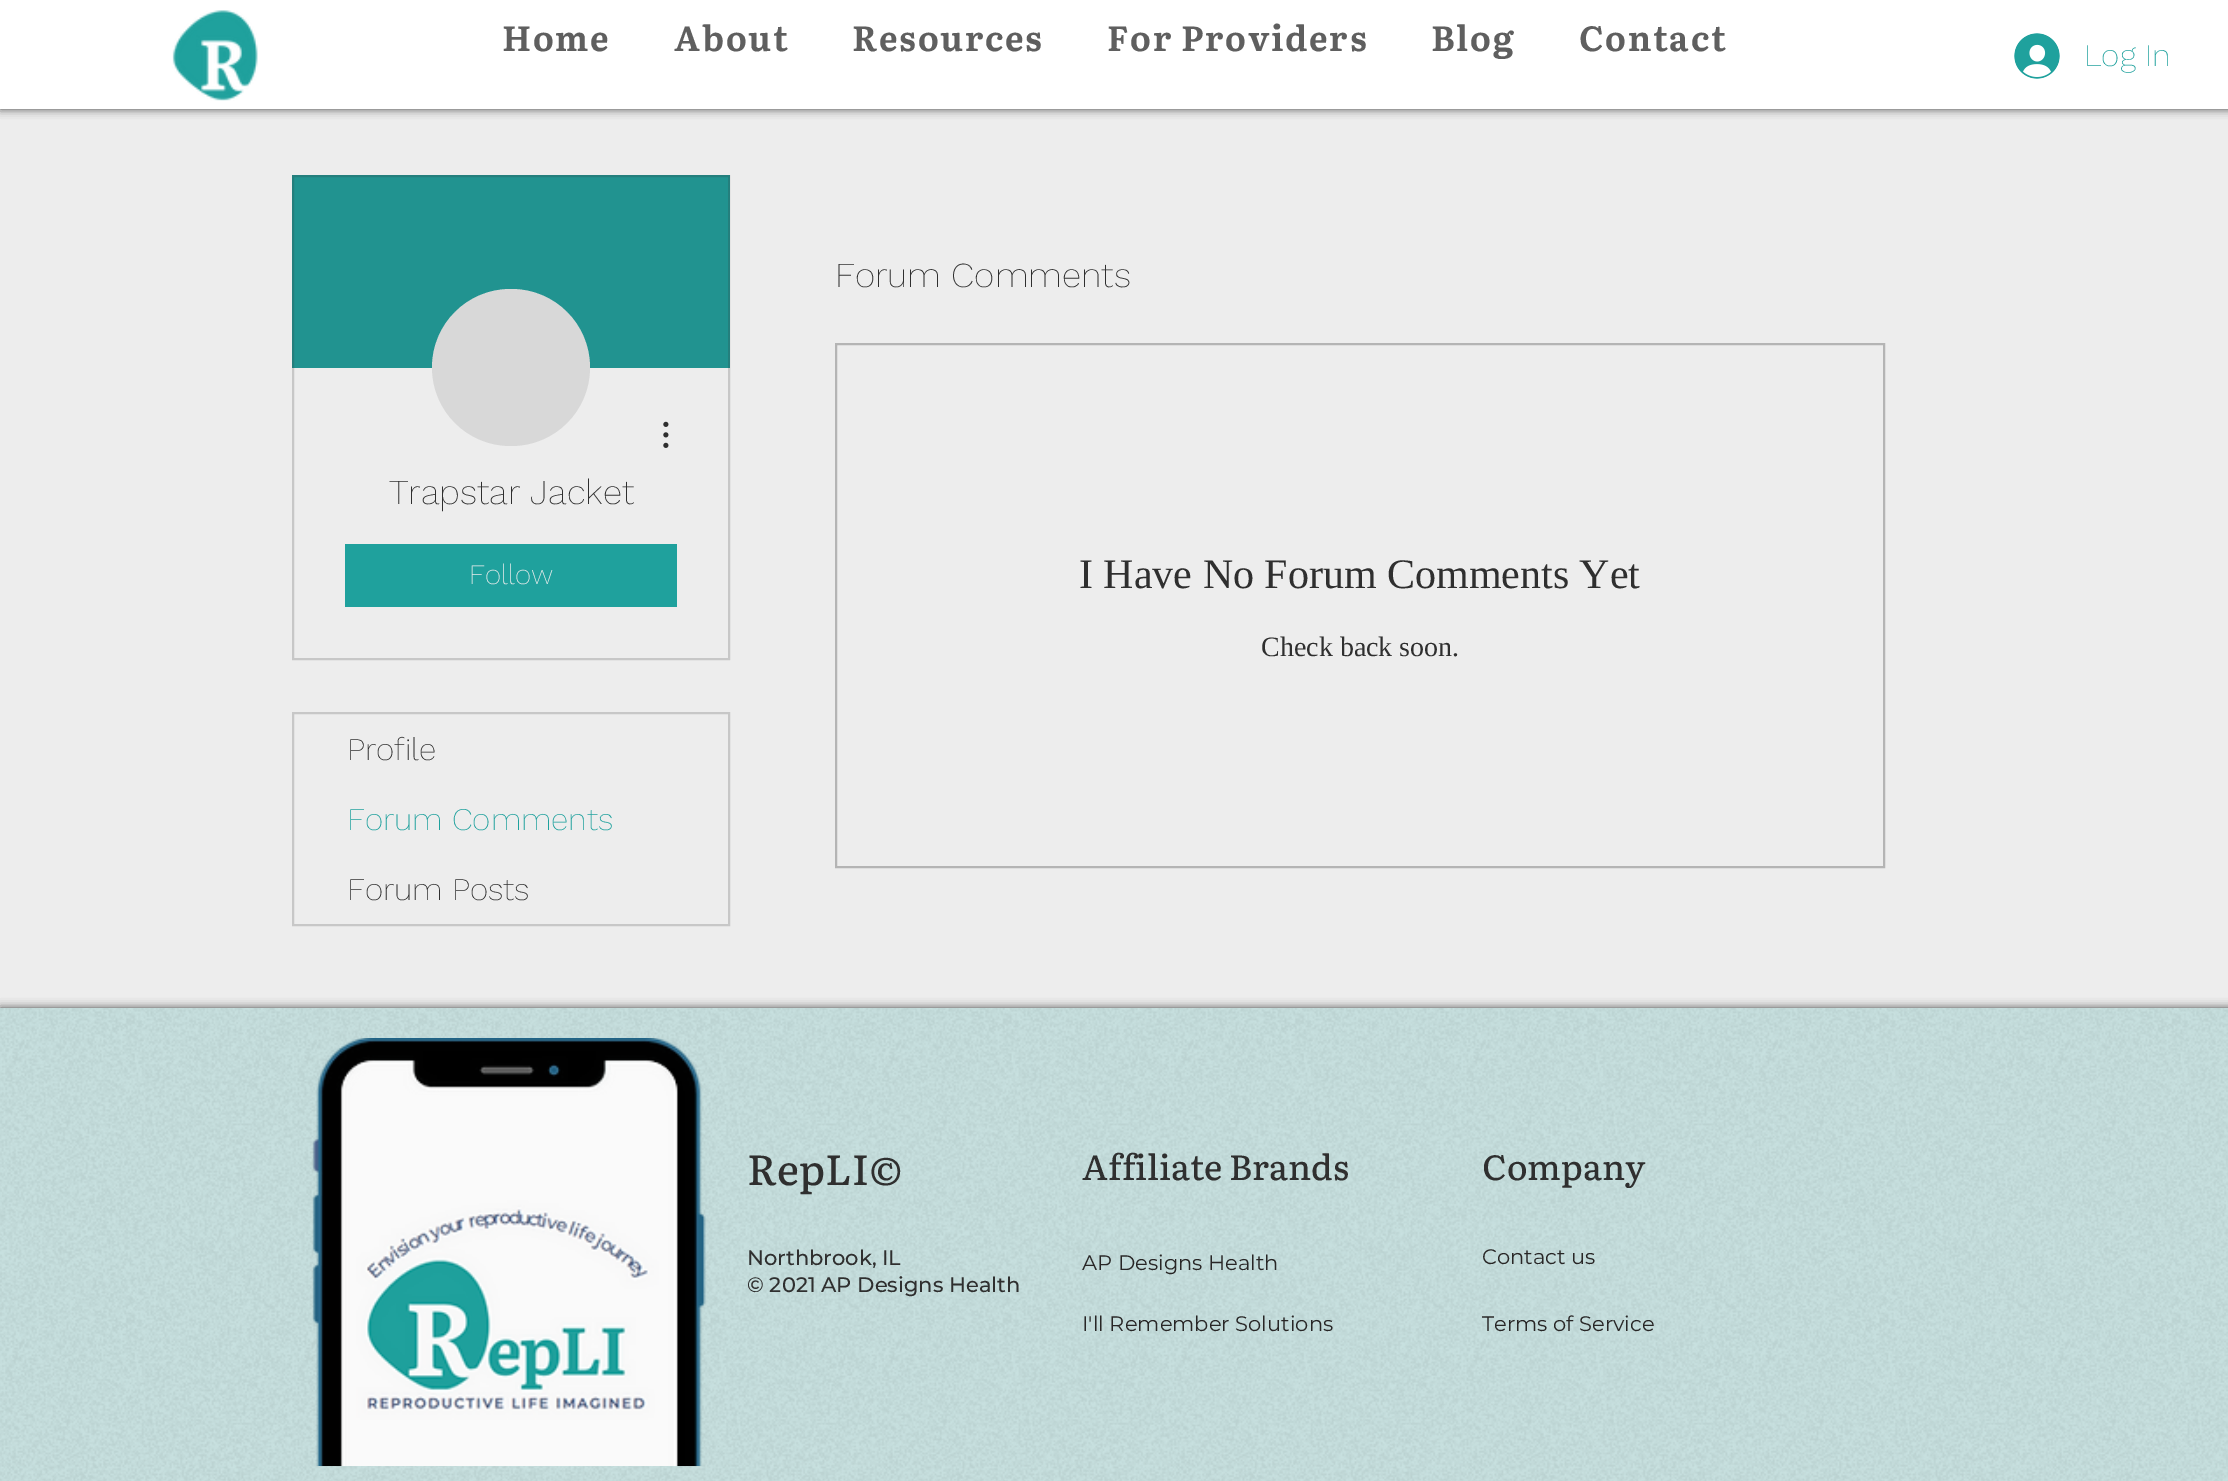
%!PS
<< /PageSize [2228 1481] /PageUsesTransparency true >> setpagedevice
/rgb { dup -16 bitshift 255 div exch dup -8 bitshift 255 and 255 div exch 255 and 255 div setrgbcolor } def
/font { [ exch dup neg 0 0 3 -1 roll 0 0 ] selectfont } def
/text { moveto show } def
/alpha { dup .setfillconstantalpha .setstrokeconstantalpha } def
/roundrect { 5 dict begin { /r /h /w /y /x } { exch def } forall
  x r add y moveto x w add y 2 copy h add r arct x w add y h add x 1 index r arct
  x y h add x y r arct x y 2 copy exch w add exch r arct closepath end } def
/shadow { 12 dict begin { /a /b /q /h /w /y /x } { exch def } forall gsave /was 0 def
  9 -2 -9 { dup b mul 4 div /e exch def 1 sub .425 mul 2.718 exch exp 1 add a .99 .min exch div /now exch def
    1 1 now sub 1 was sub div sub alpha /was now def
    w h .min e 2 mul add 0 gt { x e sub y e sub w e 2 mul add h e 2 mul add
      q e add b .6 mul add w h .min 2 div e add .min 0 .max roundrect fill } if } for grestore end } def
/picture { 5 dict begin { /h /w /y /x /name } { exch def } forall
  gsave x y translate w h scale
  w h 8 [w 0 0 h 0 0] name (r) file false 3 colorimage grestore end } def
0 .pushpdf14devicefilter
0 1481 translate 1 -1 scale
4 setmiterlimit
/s1 { /WorkSans-ExtraLight 31.5 font 16#1FA19D rgb } def
/s2 { /WorkSans-ExtraLight 35 font 16#2F2F2F rgb } def
/s3 { /WorkSans-ExtraLight 28 font 16#EDEDED rgb } def
/s4 { /WorkSans-ExtraLight 31.5 font 16#2F2F2F rgb } def
/s5 { /LiberationSerif-Regular 42 font 16#2F2F2F rgb } def
/s6 { /LiberationSerif-Regular 28 font 16#2F2F2F rgb } def
/s7 { /Literata-Medium 42 font 16#2F2F2F rgb } def
/s8 { /Literata-Medium 35 font 16#2F2F2F rgb } def
/s9 { /Montserrat-Medium 21 font 16#2F2F2F rgb } def
/s10 { /Montserrat-Regular 21 font 16#282626 rgb } def
16#EDEDED rgb
0 0 2228 1481 rectfill
16#000000 rgb
0 0 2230 109 0 4.5 0.7 shadow
16#FFFFFF rgb
0 0 2228 109 rectfill
(pic1.raw) 172 10 86 91 picture
/Literata-Bold 35 font
16#5F5F5F rgb
502 51 moveto 1.75 0 (Home) ashow
674 51 moveto 1.75 0 (About) ashow
852 51 moveto 1.75 0 (Resources) ashow
1107 51 moveto 1.75 0 (For Providers) ashow
1431 51 moveto 1.75 0 (Blog) ashow
1579 51 moveto 1.75 0 (Contact) ashow
(pic2.raw) 2014 33 46 46 picture
s1
(Log In) 2084 66 text
16#219390 rgb
292 175 438 193 rectfill
0.2 alpha
16#2F2F2F rgb
2 setlinewidth
293 176 436 483 rectstroke
1 alpha
16#D8D8D8 rgb
432 289 158 157 78.5 roundrect fill
(pic3.raw) 663 421 6 27 picture
s2
(Trapstar Jacket) 389 504 text
16#1FA19D rgb
345 544 332 63 rectfill
s3
(Follow) 469 584 text
16#C7C7C7 rgb
293 713 436 212 rectstroke
s4
(Profile) 347 760 text
s1
(Forum Comments) 347 830 text
s4
(Forum Posts) 347 900 text
s2
(Forum Comments) 835 287 text
16#B4B4B4 rgb
836 344 1048 523 rectstroke
s5
(I Have No Forum Comments Yet) 1079 588 text
s6
(Check back soon.) 1261 656 text
16#000000 rgb
0 1008 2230 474 0 4.5 0.7 shadow
16#C7E0DF rgb
0 1008 2228 473 rectfill
(pic4.raw) 0 1008 2228 473 picture
(pic5.raw) 312 1038 394 429 picture
s7
(RepLI©) 747 1185 text
s8
(Affiliate Brands) 1082 1180 text
(Company) 1482 1180 text
s9
(Northbrook, IL) 747 1265 text
s10
(AP Designs Health) 1082 1270 text
(Contact us) 1482 1264 text
s9
(© 2021 AP Designs Health) 747 1292 text
s10
(I'll Remember Solutions) 1082 1331 text
(Terms of Service) 1482 1331 text
.poppdf14devicefilter showpage
